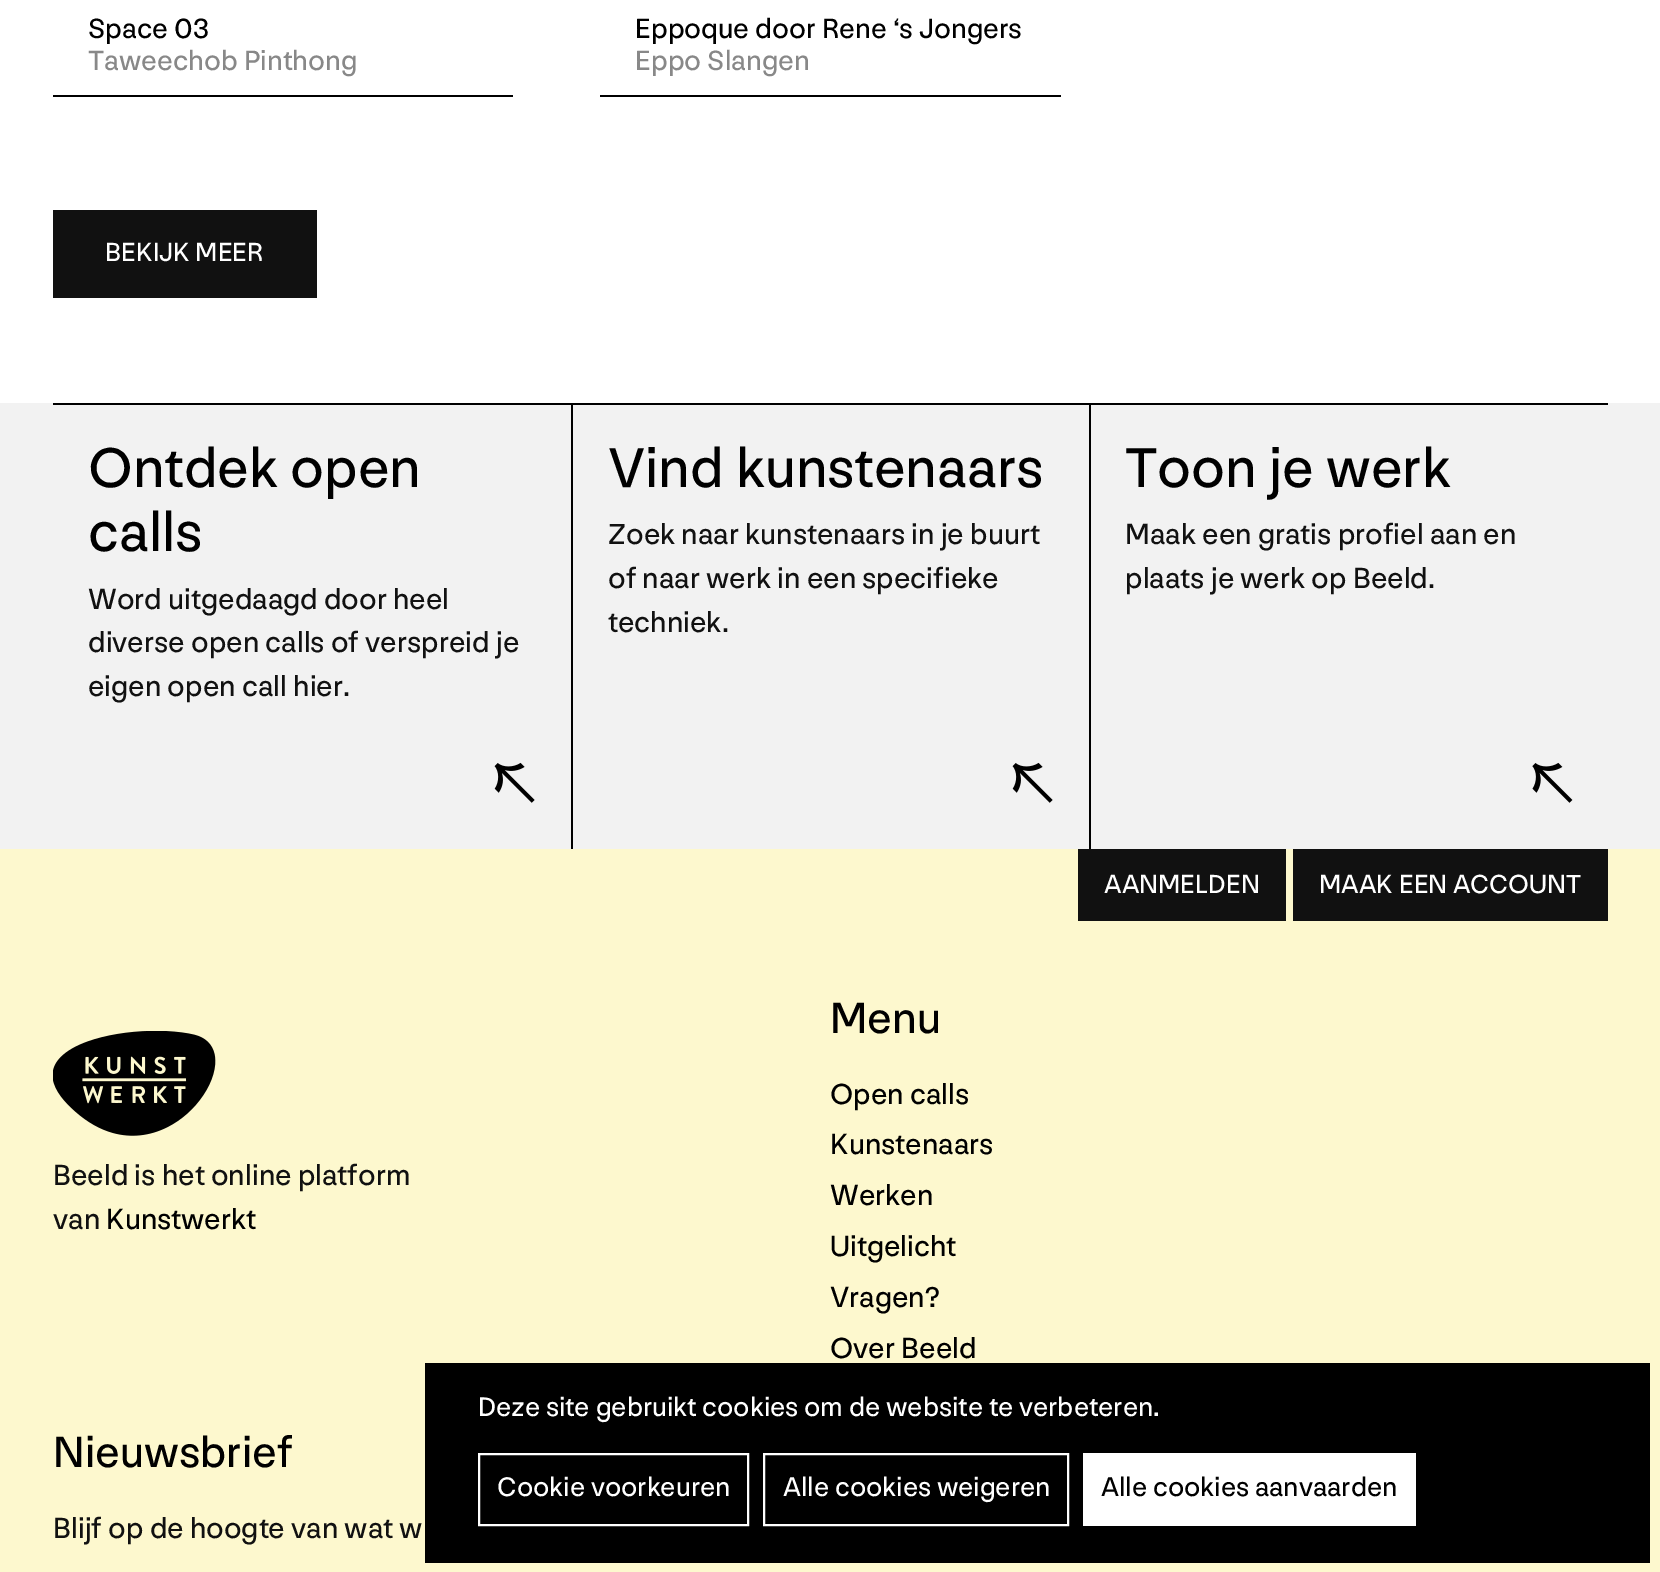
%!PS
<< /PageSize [1660 1572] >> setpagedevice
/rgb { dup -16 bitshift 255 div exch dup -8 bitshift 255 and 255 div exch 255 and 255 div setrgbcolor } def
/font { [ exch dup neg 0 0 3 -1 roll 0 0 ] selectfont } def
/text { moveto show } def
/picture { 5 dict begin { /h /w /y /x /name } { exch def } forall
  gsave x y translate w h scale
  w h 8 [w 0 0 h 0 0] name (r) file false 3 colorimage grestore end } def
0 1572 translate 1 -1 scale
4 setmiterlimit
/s1 { /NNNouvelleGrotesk-Regular 29.1 font 16#000000 rgb } def
/s2 { /NNNouvelleGrotesk-Regular 29.1 font 16#888888 rgb } def
/s3 { /NNNouvelleGrotesk-Regular 27.25 font 16#FFFFFF rgb } def
/s4 { /NNNouvelleGrotesk-Regular 58.25 font 16#000000 rgb } def
/s5 { /NNNouvelleGrotesk-Regular 30.25 font 16#111111 rgb } def
/s6 { /NNNouvelleGrotesk-Regular 30.25 font 16#000000 rgb } def
/s7 { /NNNouvelleGrotesk-Regular 45.5 font 16#000000 rgb } def
/s8 { /NNNouvelleGrotesk-Regular 28 font 16#FFFFFF rgb } def
/s9 { /NNNouvelleGrotesk-Regular 28 font 16#000000 rgb } def
16#FFFFFF rgb
0 0 1660 1572 rectfill
16#000000 rgb
53 95 460 2 rectfill
s1
(Space 03) 88 38 text
s2
(Taweechob Pinthong) 88 70 text
16#000000 rgb
600 95 461 2 rectfill
(Eppoque door Rene ‘s Jongers) 635 38 text
s2
(Eppo Slangen) 635 70 text
16#111111 rgb
53 210 264 88 rectfill
s3
(BEKIJK MEER) 105 261 text
16#F2F2F2 rgb
0 403 1660 446 rectfill
16#000000 rgb
53 403 1555 2 rectfill
s4
(Ontdek open) 88 487 text
(calls) 88 551 text
s5
(Word uitgedaagd door heel) 88 609 text
(diverse open calls of verspreid je) 88 652 text
(eigen open call hier.) 88 696 text
(pic1.raw) 494 762 41 41 picture
16#000000 rgb
1089 404 2 445 rectfill
571 404 2 445 rectfill
s4
(Vind kunstenaars) 608 487 text
s5
(Zoek naar kunstenaars in je buurt) 608 544 text
(of naar werk in een specifieke) 608 588 text
(techniek.) 608 632 text
(pic1.raw) 1012 762 41 41 picture
s4
(Toon je werk) 1125 487 text
s5
(Maak een gratis profiel aan en) 1125 544 text
(plaats je werk op Beeld.) 1125 588 text
(pic2.raw) 1532 762 41 41 picture
16#FDF8CE rgb
0 849 1660 723 rectfill
16#111111 rgb
1078 849 208 72 rectfill
s3
(AANMELDEN) 1104 893 text
16#111111 rgb
1293 849 315 72 rectfill
s3
(MAAK EEN ACCOUNT) 1319 893 text
(pic3.raw) 53 1031 163 105 picture
s5
(Beeld is het online platform) 53 1185 text
(van) 53 1229 text
s6
(Kunstwerkt) 106 1229 text
s7
(Menu) 830 1033 text
s6
(Open calls) 830 1104 text
(Kunstenaars) 830 1154 text
(Werken) 830 1205 text
(Uitgelicht) 830 1256 text
(Vragen?) 830 1307 text
(Over Beeld) 830 1358 text
s7
(Nieuwsbrief) 53 1467 text
s5
(Blijf op de hoogte van wat w) 53 1538 text
16#000000 rgb
425 1363 1225 200 rectfill
s8
(Deze site gebruikt cookies om de website te verbeteren.) 478 1416 text
2 setlinewidth
479 1454 269 71 rectstroke
(Cookie voorkeuren) 497 1496 text
764 1454 304 71 rectstroke
(Alle cookies weigeren) 783 1496 text
1083 1453 333 73 rectfill
s9
(Alle cookies aanvaarden) 1101 1496 text
showpage
